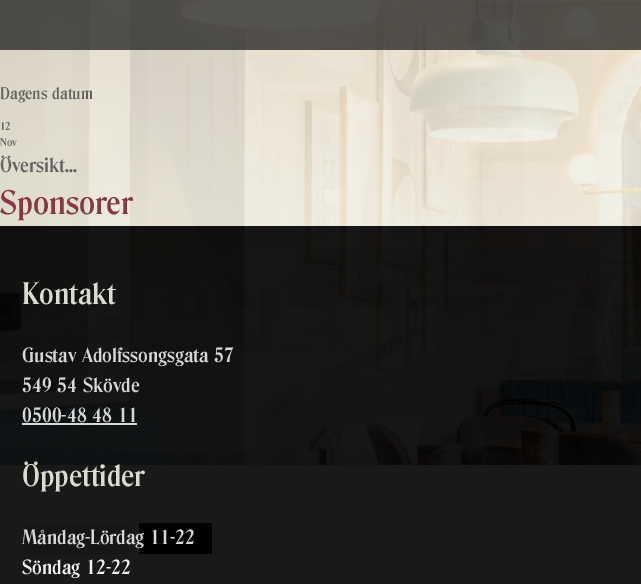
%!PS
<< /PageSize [641 584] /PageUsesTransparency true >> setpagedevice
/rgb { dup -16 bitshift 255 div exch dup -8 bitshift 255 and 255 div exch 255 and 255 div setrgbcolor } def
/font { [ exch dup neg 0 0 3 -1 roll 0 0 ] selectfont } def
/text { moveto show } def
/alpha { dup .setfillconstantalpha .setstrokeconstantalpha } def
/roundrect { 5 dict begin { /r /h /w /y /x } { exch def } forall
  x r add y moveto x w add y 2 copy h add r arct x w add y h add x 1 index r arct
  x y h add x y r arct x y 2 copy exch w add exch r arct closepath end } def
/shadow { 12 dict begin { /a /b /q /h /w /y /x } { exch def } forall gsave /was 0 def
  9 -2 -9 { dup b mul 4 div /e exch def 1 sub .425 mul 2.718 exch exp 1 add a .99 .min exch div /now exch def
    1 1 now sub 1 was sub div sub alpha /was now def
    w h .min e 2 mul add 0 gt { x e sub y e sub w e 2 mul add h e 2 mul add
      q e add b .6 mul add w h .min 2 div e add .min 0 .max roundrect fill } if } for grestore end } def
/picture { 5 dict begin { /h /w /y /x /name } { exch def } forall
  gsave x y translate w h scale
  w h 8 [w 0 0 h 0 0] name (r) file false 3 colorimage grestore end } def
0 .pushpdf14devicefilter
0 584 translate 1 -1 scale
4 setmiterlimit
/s1 { /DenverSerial-Bold 16.5 font 16#63625F rgb } def
/s2 { /DenverSerial-Bold 11 font 16#63625F rgb } def
/s3 { /DenverSerial-Bold 20 font 16#63625F rgb } def
/s4 { /DenverSerial-Bold 33 font 16#843944 rgb } def
/s5 { /DenverSerial-Bold 30 font 16#DCDBCF rgb } def
/s6 { /DenverSerial-Bold 20 font 16#D8D8D8 rgb } def
/s7 { /DenverSerial-Bold 20 font 16#F0F0F0 rgb } def
16#FFFFFF rgb
0 0 641 584 rectfill
(pic1.raw) 0 0 641 465 picture
(pic2.raw) 0 0 641 465 picture
0.8 alpha
16#F2F1E4 rgb
0 0 641 226 rectfill
0.7 alpha
16#111111 rgb
0 0 641 50 rectfill
1 alpha
s1
(Dagens datum) 0 99 text
s2
(12) 0 130 text
(Nov) 0 146 text
s3
(Översikt...) 0 172 text
s4
(Sponsorer) 0 214 text
16#ACABAB rgb
0 464 641 119 0 5 0.3 shadow
16#FFFFFF rgb
0 465 641 119 rectfill
16#DEDFE0 rgb
25 523 104 31 rectfill
16#000000 rgb
139 523 73 31 rectfill
0.9 alpha
0 226 641 358 rectfill
1 alpha
s5
(Kontakt) 22 304 text
s6
(Gustav Adolfssongsgata 57) 22 362 text
(549 54 Skövde) 22 392 text
(0500-48 48 11) 22 422 text
0.9 alpha
16#EEEEEE rgb
22 423 115 2 rectfill
1 alpha
s5
(Öppettider) 22 486 text
s6
(Måndag-Lördag 11-22) 22 544 text
s7
(Söndag 12-22) 22 574 text
.poppdf14devicefilter showpage
